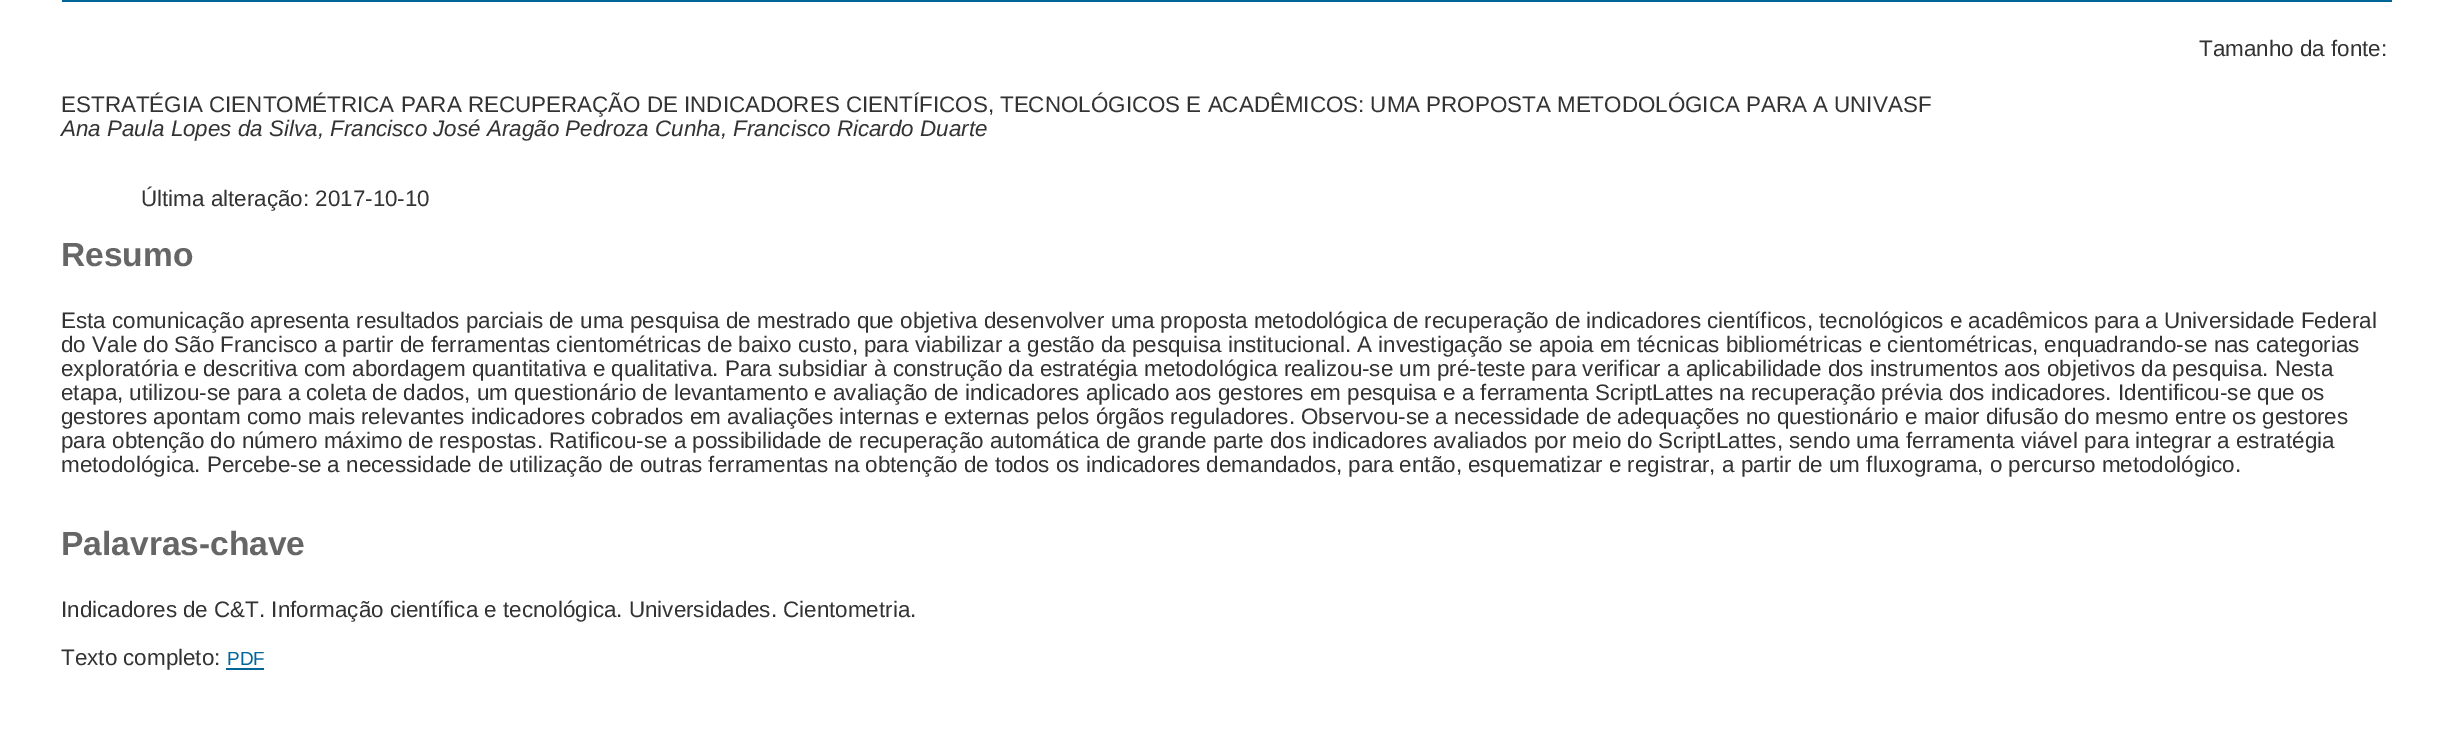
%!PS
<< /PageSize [2453 733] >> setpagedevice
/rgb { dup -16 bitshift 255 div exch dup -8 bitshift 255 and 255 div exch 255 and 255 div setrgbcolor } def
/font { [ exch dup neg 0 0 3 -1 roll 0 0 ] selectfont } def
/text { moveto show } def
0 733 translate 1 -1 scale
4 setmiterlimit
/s1 { /LiberationSans-Regular 22.4 font 16#333333 rgb } def
/s2 { /LiberationSans-Italic 22.4 font 16#333333 rgb } def
/s3 { /LiberationSans-Bold 33.5 font 16#666666 rgb } def
/s4 { /LiberationSans-Regular 19 font 16#006699 rgb } def
16#FFFFFF rgb
0 0 2453 733 rectfill
16#006699 rgb
62 0 2330 2 rectfill
s1
(Tamanho da fonte:) 2199 56 text
61 112 moveto -0.1 0 32 (ESTRATÉGIA CIENTOMÉTRICA PARA RECUPERAÇÃO DE INDICADORES CIENTÍFICOS, TECNOLÓGICOS E ACADÊMICOS: UMA PROPOSTA METODOLÓGICA PARA A UNIVASF) widthshow
s2
(Ana Paula Lopes da Silva, Francisco José Aragão Pedroza Cunha, Francisco Ricardo Duarte) 61 136 text
s1
(Última alteração: 2017-10-10) 141 206 text
s3
(Resumo) 61 266 text
s1
(Esta comunicação apresenta resultados parciais de uma pesquisa de mestrado que objetiva desenvolver uma proposta metodológica de recuperação de indicadores científicos, tecnológicos e acadêmicos para a Universidade Federal) 61 328 text
(do Vale do São Francisco a partir de ferramentas cientométricas de baixo custo, para viabilizar a gestão da pesquisa institucional. A investigação se apoia em técnicas bibliométricas e cientométricas, enquadrando-se nas categorias) 61 352 text
(exploratória e descritiva com abordagem quantitativa e qualitativa. Para subsidiar à construção da estratégia metodológica realizou-se um pré-teste para verificar a aplicabilidade dos instrumentos aos objetivos da pesquisa. Nesta) 61 376 text
(etapa, utilizou-se para a coleta de dados, um questionário de levantamento e avaliação de indicadores aplicado aos gestores em pesquisa e a ferramenta ScriptLattes na recuperação prévia dos indicadores. Identificou-se que os) 61 400 text
(gestores apontam como mais relevantes indicadores cobrados em avaliações internas e externas pelos órgãos reguladores. Observou-se a necessidade de adequações no questionário e maior difusão do mesmo entre os gestores) 61 424 text
(para obtenção do número máximo de respostas. Ratificou-se a possibilidade de recuperação automática de grande parte dos indicadores avaliados por meio do ScriptLattes, sendo uma ferramenta viável para integrar a estratégia) 61 448 text
(metodológica. Percebe-se a necessidade de utilização de outras ferramentas na obtenção de todos os indicadores demandados, para então, esquematizar e registrar, a partir de um fluxograma, o percurso metodológico.) 61 472 text
s3
(Palavras-chave) 61 555 text
s1
(Indicadores de C&T. Informação científica e tecnológica. Universidades. Cientometria.) 61 617 text
(Texto completo:) 61 665 text
s4
(PDF) 227 665 text
226 668 38 2 rectfill
showpage
